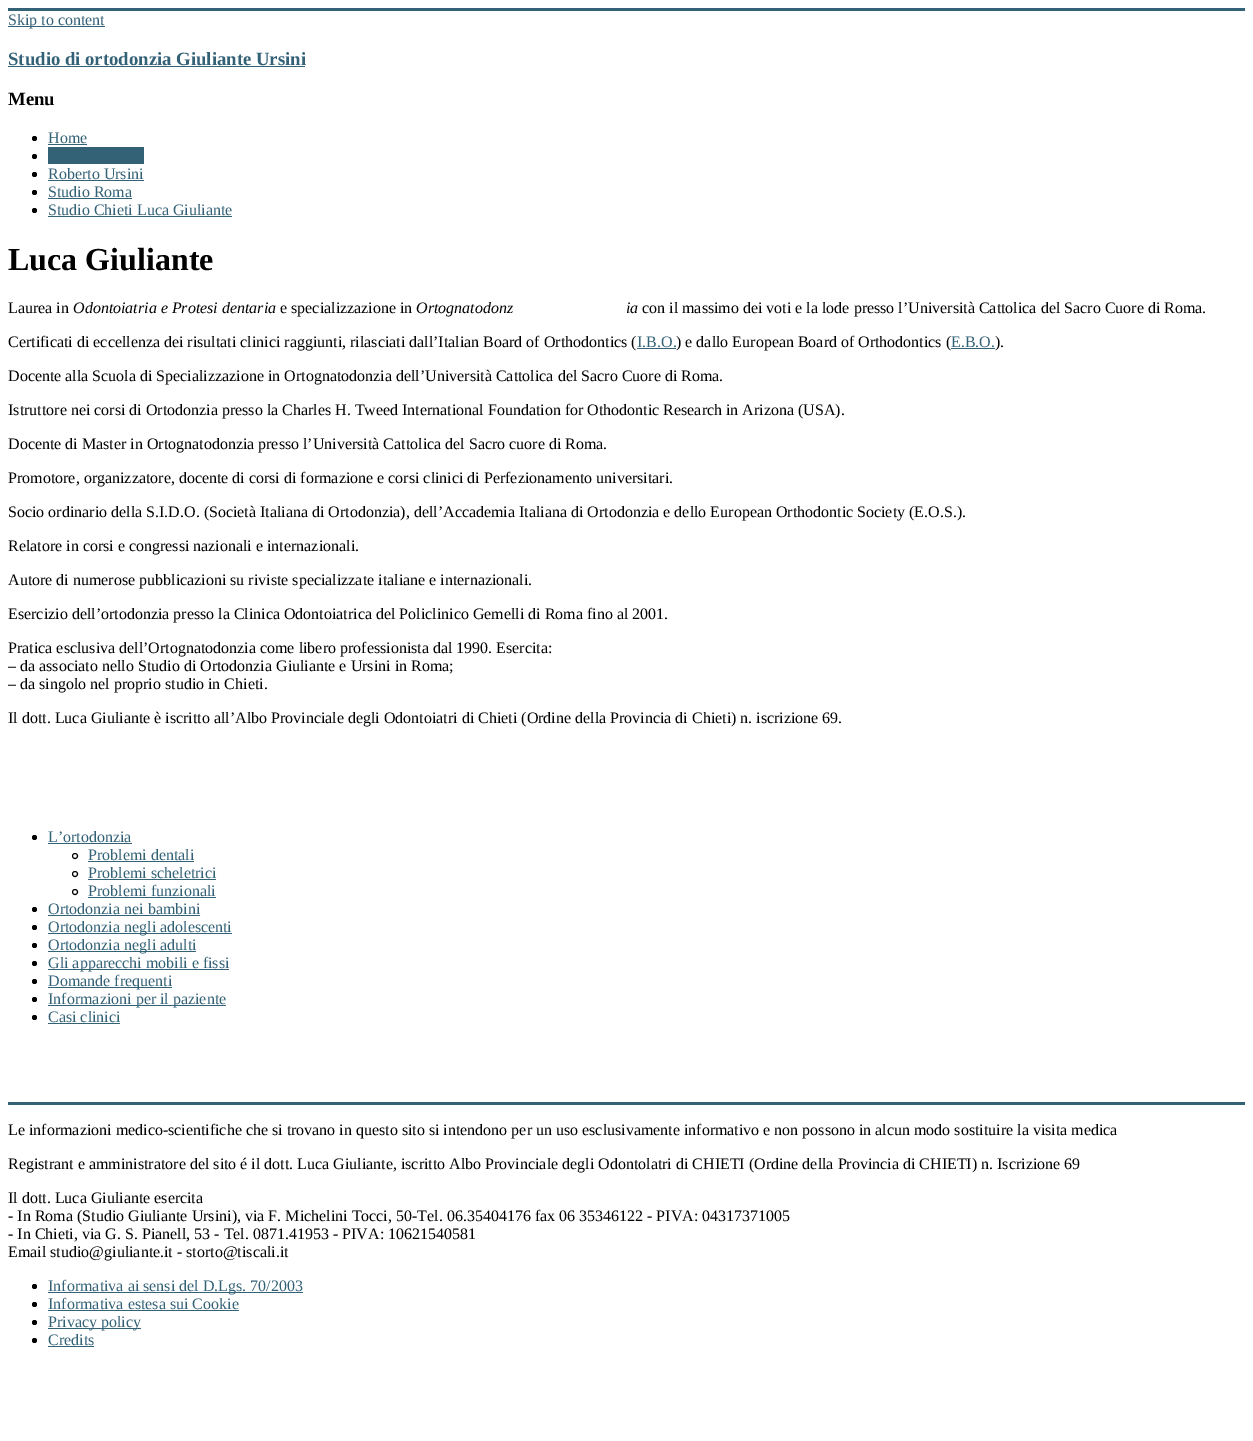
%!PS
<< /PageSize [1253 1441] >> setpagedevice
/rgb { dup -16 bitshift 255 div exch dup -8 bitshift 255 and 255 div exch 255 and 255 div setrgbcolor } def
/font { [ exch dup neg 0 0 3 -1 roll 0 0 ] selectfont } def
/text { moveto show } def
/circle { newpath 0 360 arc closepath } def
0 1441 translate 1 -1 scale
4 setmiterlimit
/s1 { /LiberationSerif-Regular 16 font 16#336176 rgb } def
/s2 { /LiberationSerif-Bold 18.75 font 16#336176 rgb } def
/s3 { /LiberationSerif-Bold 18.75 font 16#000000 rgb } def
/s4 { /LiberationSerif-Bold 32 font 16#000000 rgb } def
/s5 { /LiberationSerif-Regular 16 font 16#000000 rgb } def
/s6 { /LiberationSerif-Italic 16 font 16#000000 rgb } def
16#FFFFFF rgb
0 0 1253 1441 rectfill
16#336176 rgb
8 8 1237 3 rectfill
8 26 97 1 rectfill
s1
(Skip to content) 8 25 text
s2
(Studio di ortodonzia Giuliante Ursini) 8 65 text
8 66 297 1 rectfill
s3
(Menu) 8 105 text
34.5 138.5 2.5 circle fill
s1
(Home) 48 143 text
48 144 39 1 rectfill
16#000000 rgb
34.5 156.5 2.5 circle fill
16#336176 rgb
48 147 96 17 rectfill
16#000000 rgb
34.5 174.5 2.5 circle fill
s1
(Roberto Ursini) 48 179 text
48 180 96 1 rectfill
16#000000 rgb
34.5 192.5 2.5 circle fill
s1
(Studio Roma) 48 197 text
48 198 84 1 rectfill
16#000000 rgb
34.5 210.5 2.5 circle fill
s1
(Studio Chieti Luca Giuliante) 48 215 text
48 216 184 1 rectfill
s4
(Luca Giuliante) 8 270 text
s5
(Laurea in) 8 313 text
s6
(Odontoiatria e Protesi dentaria) 73 313 text
s5
(e specializzazione in) 280 313 text
s6
(Ortognatodonz) 416 313 text
(ia) 626 313 text
s5
(con il massimo dei voti e la lode presso l’Università Cattolica del Sacro Cuore di Roma.) 642 313 text
(Certificati di eccellenza dei risultati clinici raggiunti, rilasciati dall’Italian Board of Orthodontics \() 8 347 text
s1
(I.B.O.) 637 347 text
637 348 39 1 rectfill
s5
(\) e dallo European Board of Orthodontics \() 676 347 text
s1
(E.B.O.) 951 347 text
951 348 44 1 rectfill
s5
(\).) 995 347 text
(Docente alla Scuola di Specializzazione in Ortognatodonzia dell’Università Cattolica del Sacro Cuore di Roma.) 8 381 text
(Istruttore nei corsi di Ortodonzia presso la Charles H. Tweed International Foundation for Othodontic Research in Arizona \(USA\).) 8 415 text
(Docente di Master in Ortognatodonzia presso l’Università Cattolica del Sacro cuore di Roma.) 8 449 text
(Promotore, organizzatore, docente di corsi di formazione e corsi clinici di Perfezionamento universitari.) 8 483 text
(Socio ordinario della S.I.D.O. \(Società Italiana di Ortodonzia\), dell’Accademia Italiana di Ortodonzia e dello European Orthodontic Society \(E.O.S.\).) 8 517 text
(Relatore in corsi e congressi nazionali e internazionali.) 8 551 text
(Autore di numerose pubblicazioni su riviste specializzate italiane e internazionali.) 8 585 text
(Esercizio dell’ortodonzia presso la Clinica Odontoiatrica del Policlinico Gemelli di Roma fino al 2001.) 8 619 text
(Pratica esclusiva dell’Ortognatodonzia come libero professionista dal 1990. Esercita:) 8 653 text
(– da associato nello Studio di Ortodonzia Giuliante e Ursini in Roma;) 8 671 text
(– da singolo nel proprio studio in Chieti.) 8 689 text
(Il dott. Luca Giuliante è iscritto all’Albo Provinciale degli Odontoiatri di Chieti \(Ordine della Provincia di Chieti\) n. iscrizione 69.) 8 723 text
34.5 837.5 2.5 circle fill
s1
(L’ortodonzia) 48 842 text
48 843 84 1 rectfill
16#000000 rgb
75 856 2.5 circle stroke
s1
(Problemi dentali) 88 860 text
88 861 106 1 rectfill
16#000000 rgb
75 874 2.5 circle stroke
s1
(Problemi scheletrici) 88 878 text
88 879 128 1 rectfill
16#000000 rgb
75 892 2.5 circle stroke
s1
(Problemi funzionali) 88 896 text
88 897 128 1 rectfill
16#000000 rgb
34.5 909.5 2.5 circle fill
s1
(Ortodonzia nei bambini) 48 914 text
48 915 152 1 rectfill
16#000000 rgb
34.5 927.5 2.5 circle fill
16#336176 rgb
48 933 184 1 rectfill
(Ortodonzia negli adolescenti) 48 932 text
16#000000 rgb
34.5 945.5 2.5 circle fill
16#336176 rgb
48 951 148 1 rectfill
(Ortodonzia negli adulti) 48 950 text
16#000000 rgb
34.5 963.5 2.5 circle fill
16#336176 rgb
48 969 181 1 rectfill
(Gli apparecchi mobili e fissi) 48 968 text
16#000000 rgb
34.5 981.5 2.5 circle fill
16#336176 rgb
48 987 124 1 rectfill
(Domande frequenti) 48 986 text
16#000000 rgb
34.5 999.5 2.5 circle fill
16#336176 rgb
48 1005 178 1 rectfill
(Informazioni per il paziente) 48 1004 text
16#000000 rgb
34.5 1017.5 2.5 circle fill
s1
(Casi clinici) 48 1022 text
48 1023 72 1 rectfill
8 1102 1237 3 rectfill
s5
(Le informazioni medico-scientifiche che si trovano in questo sito si intendono per un uso esclusivamente informativo e non possono in alcun modo sostituire la visita medica) 8 1135 text
(Registrant e amministratore del sito é il dott. Luca Giuliante, iscritto Albo Provinciale degli Odontolatri di CHIETI \(Ordine della Provincia di CHIETI\) n. Iscrizione 69) 8 1169 text
(Il dott. Luca Giuliante esercita) 8 1203 text
(- In Roma \(Studio Giuliante Ursini\), via F. Michelini Tocci, 50-Tel. 06.35404176 fax 06 35346122 - PIVA: 04317371005) 8 1221 text
(- In Chieti, via G. S. Pianell, 53 - Tel. 0871.41953 - PIVA: 10621540581) 8 1239 text
(Email studio@giuliante.it - storto@tiscali.it) 8 1257 text
34.5 1286.5 2.5 circle fill
16#336176 rgb
48 1292 255 1 rectfill
(Informativa ai sensi del D.Lgs. 70/2003) 48 1291 text
16#000000 rgb
34.5 1304.5 2.5 circle fill
s1
(Informativa estesa sui Cookie) 48 1309 text
48 1310 191 1 rectfill
16#000000 rgb
34.5 1322.5 2.5 circle fill
16#336176 rgb
48 1328 93 1 rectfill
(Privacy policy) 48 1327 text
16#000000 rgb
34.5 1340.5 2.5 circle fill
s1
(Credits) 48 1345 text
48 1346 46 1 rectfill
showpage
